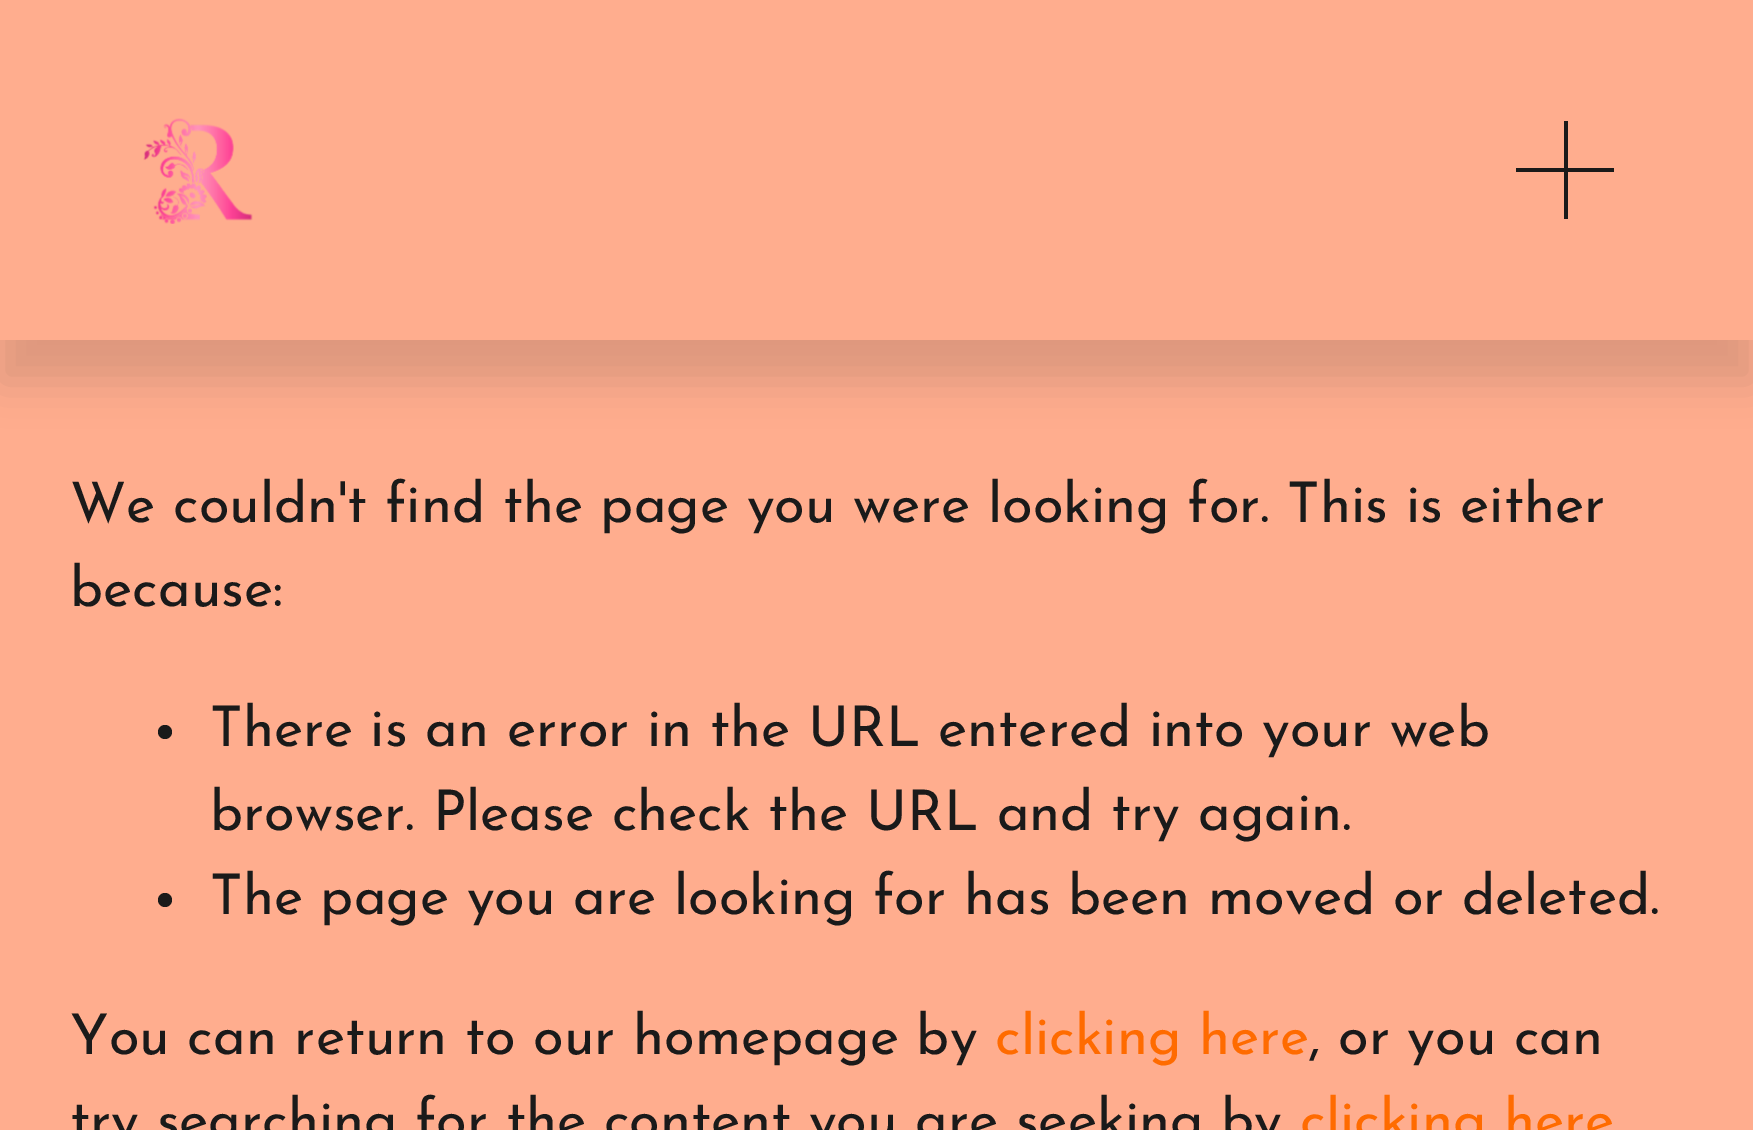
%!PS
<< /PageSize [1753 1130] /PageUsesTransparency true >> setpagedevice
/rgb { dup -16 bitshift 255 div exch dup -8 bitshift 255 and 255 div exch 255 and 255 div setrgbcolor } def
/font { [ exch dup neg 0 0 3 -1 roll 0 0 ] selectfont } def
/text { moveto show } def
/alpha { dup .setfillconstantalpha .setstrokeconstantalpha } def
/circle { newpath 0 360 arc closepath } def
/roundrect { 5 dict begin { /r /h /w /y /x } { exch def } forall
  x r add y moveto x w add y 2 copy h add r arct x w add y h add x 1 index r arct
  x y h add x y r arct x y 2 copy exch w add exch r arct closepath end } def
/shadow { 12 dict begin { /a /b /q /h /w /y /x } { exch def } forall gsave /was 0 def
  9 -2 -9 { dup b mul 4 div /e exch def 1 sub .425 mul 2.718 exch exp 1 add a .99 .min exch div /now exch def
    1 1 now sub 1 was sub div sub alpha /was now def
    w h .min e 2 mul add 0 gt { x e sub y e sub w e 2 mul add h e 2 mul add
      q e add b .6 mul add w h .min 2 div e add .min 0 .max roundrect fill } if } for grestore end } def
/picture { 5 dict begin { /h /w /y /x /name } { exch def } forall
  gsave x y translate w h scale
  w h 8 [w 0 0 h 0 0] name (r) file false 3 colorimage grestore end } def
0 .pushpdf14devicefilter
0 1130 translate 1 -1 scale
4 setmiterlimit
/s1 { /JosefinSans-Regular 56 font 16#1A1A1A rgb } def
/s2 { /JosefinSans-Regular 56 font 16#FF6B00 rgb } def
16#FFAD8E rgb
0 0 1753 1130 rectfill
gsave
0 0 moveto 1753 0 lineto 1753 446 lineto 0 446 lineto closepath 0 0 moveto 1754 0 lineto 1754 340 lineto 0 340 lineto closepath eoclip newpath
16#DD977D rgb
0 42 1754 340 0 21 1 shadow
grestore
(pic1.raw) 143 118 110 106 picture
16#1A1A1A rgb
1516 168 98 4 rectfill
1564 121 4 98 rectfill
s1
(We couldn't find the page you were looking for. This is either) 70 522 text
(because:) 70 606 text
165 732 7 circle fill
(There is an error in the URL entered into your web) 210 746 text
(browser. Please check the URL and try again.) 210 830 text
165 900 7 circle fill
(The page you are looking for has been moved or deleted.) 210 914 text
(You can return to our homepage by) 70 1054 text
s2
(clicking here) 995 1054 text
s1
(, or you can) 1309 1054 text
(try searching for the content you are seeking by) 70 1138 text
s2
(clicking here) 1300 1138 text
.poppdf14devicefilter showpage
